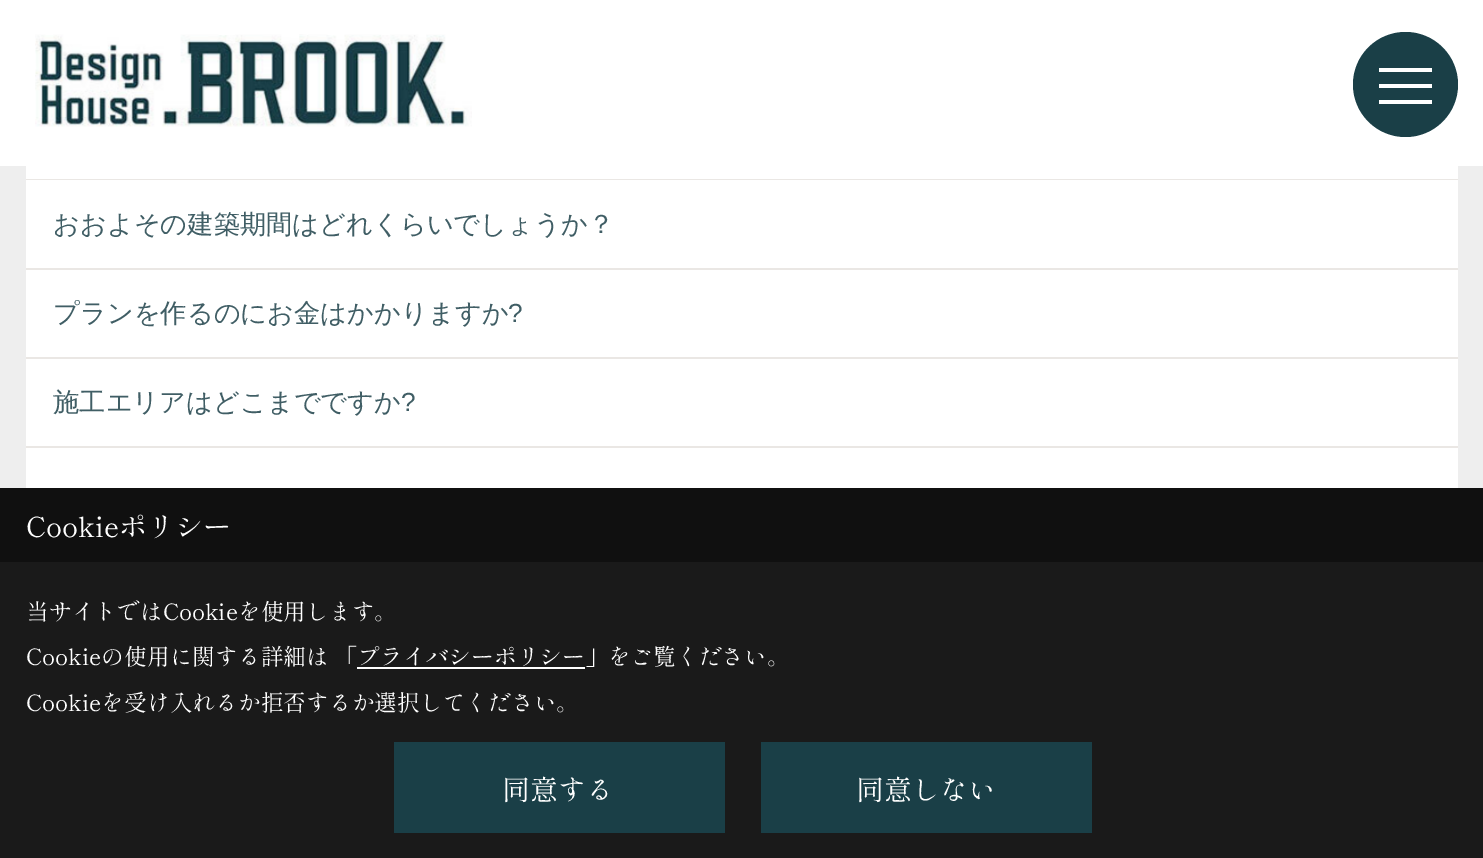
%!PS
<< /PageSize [1483 858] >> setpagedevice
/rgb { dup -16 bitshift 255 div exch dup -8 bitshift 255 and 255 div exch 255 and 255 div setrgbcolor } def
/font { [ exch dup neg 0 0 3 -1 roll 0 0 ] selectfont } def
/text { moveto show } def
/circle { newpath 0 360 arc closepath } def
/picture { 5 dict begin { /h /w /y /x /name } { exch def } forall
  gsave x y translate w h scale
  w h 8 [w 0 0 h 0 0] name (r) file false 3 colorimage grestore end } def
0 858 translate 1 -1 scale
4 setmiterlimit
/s1 { /WenQuanYiZenHei-Medium 26.25 font 16#405E65 rgb } def
/s2 { /LiberationSans-Regular 26.25 font 16#405E65 rgb } def
/s3 { /ShipporiMincho-Regular 28 font 16#FFFFFF rgb } def
/s4 { /ShipporiMincho-Regular 22.75 font 16#FFFFFF rgb } def
16#EEEEEE rgb
0 0 1483 858 rectfill
16#FFFFFF rgb
0 0 1483 166 rectfill
(pic1.raw) 35 34 437 93 picture
16#1A3F47 rgb
1405.5 84.5 52.5 circle fill
16#FFFFFF rgb
1379 68 53 4 rectfill
1379 84 53 4 rectfill
1379 100 53 4 rectfill
26 166 1432 13 rectfill
16#EAE7E4 rgb
26 179 1432 1 rectfill
16#FFFFFF rgb
26 180 1432 88 rectfill
16#EAE7E4 rgb
26 268 1432 2 rectfill
s1
(おおよその建築期間はどれくらいでしょうか？) 53 233 text
16#FFFFFF rgb
26 270 1432 87 rectfill
16#EAE7E4 rgb
26 357 1432 2 rectfill
s1
(プランを作るのにお金はかかりますか) 53 322 text
s2
(?) 508 322 text
16#FFFFFF rgb
26 359 1432 87 rectfill
16#EAE7E4 rgb
26 446 1432 2 rectfill
s1
(施工エリアはどこまでですか) 53 411 text
s2
(?) 401 411 text
16#FFFFFF rgb
26 448 1432 40 rectfill
16#101010 rgb
0 488 1483 74 rectfill
s3
(Cookieポリシー) 26 537 text
16#1A1A1A rgb
0 562 1483 296 rectfill
s4
(当サイトではCookieを使用します。) 26 620 text
(Cookieの使用に関する詳細は 「プライバシーポリシー」をご覧ください。) 26 665 text
357 667 228 2 rectfill
(Cookieを受け入れるか拒否するか選択してください。) 26 711 text
16#1A3F47 rgb
394 742 331 91 rectfill
s3
(同意する) 502 800 text
16#1A3F47 rgb
761 742 331 91 rectfill
s3
(同意しない) 856 800 text
showpage
